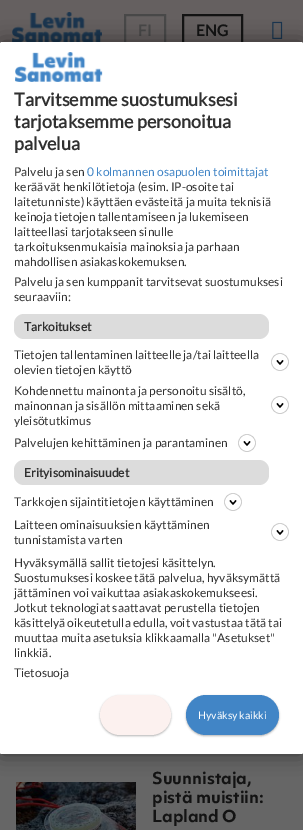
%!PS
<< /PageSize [303 830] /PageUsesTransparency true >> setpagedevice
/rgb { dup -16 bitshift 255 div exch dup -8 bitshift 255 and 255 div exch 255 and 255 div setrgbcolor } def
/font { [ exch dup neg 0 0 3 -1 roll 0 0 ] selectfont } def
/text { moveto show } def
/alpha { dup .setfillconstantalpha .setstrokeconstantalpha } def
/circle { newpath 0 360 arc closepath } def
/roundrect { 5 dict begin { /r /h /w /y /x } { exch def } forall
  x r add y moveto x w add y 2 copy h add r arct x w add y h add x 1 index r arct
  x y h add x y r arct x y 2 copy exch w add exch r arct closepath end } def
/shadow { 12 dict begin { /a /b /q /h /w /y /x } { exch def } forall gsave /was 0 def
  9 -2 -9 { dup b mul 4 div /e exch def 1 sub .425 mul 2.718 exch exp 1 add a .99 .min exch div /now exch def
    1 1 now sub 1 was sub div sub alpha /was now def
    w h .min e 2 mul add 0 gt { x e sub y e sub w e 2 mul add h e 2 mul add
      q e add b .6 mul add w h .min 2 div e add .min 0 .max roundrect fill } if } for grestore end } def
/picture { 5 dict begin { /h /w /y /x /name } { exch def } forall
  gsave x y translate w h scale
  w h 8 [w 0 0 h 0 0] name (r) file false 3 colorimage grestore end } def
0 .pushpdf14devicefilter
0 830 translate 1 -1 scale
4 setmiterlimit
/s1 { /Lato-Bold 16 font 16#484848 rgb } def
/s2 { /Lato-Bold 16 font 16#131313 rgb } def
/s3 { /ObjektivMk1-Bold 16 font 16#131313 rgb } def
/s4 { /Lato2-Bold 18 font 16#303030 rgb } def
/s5 { /Lato-Regular 12 font 16#303030 rgb } def
/s6 { /Lato-Regular 12 font 16#4185C6 rgb } def
/s7 { /Lato2-Bold 12 font 16#303030 rgb } def
/s8 { /Lato-Regular 10.5 font 16#FFFFFF rgb } def
16#666666 rgb
0 0 303 830 rectfill
16#656060 rgb
0 0 303 44 rectfill
(pic1.raw) 12 12 90 30 picture
16#484848 rgb
2 setlinewidth
125 15 40 30 rectstroke
s1
(FI) 138 36 text
16#131313 rgb
183 15 59 30 rectstroke
(ENG) 196 36 text
(pic2.raw) 272 21 11 18 picture
(pic3.raw) 16 782 120 48 picture
s3
(Suunnistaja,) 152 784 text
(pistä muistiin:) 152 803 text
(Lapland O) 152 822 text
16#000000 rgb
0 42 303 712 2 10 0.5 shadow
16#FFFFFF rgb
0 42 303 712 2 roundrect fill
(pic4.raw) 15 52 88 30 picture
s4
(Tarvitsemme suostumuksesi) 14 106 text
(tarjotaksemme personoitua) 14 128 text
(palvelua) 14 150 text
s5
(Palvelu ja sen) 14 176 text
s6
(0 kolmannen osapuolen toimittajat) 87 176 text
s5
(keräävät henkilötietoja \(esim. IP-osoite tai) 14 191 text
(laitetunniste\) käyttäen evästeitä ja muita teknisiä) 14 206 text
(keinoja tietojen tallentamiseen ja lukemiseen) 14 221 text
(laitteellasi tarjotakseen sinulle) 14 236 text
(tarkoituksenmukaisia mainoksia ja parhaan) 14 251 text
(mahdollisen asiakaskokemuksen.) 14 266 text
(Palvelu ja sen kumppanit tarvitsevat suostumuksesi) 14 286 text
(seuraaviin:) 14 301 text
16#DCDCDC rgb
14 314 255 25 10 roundrect fill
s7
(Tarkoitukset) 24 331 text
s5
(Tietojen tallentaminen laitteelle ja/tai laitteella) 14 359 text
16#000000 rgb
1.3 setlinewidth
277 360.5 moveto 280 364 lineto 283 360.5 lineto stroke
16#C4C4C4 rgb
0.6 setlinewidth
280 362 8.5 circle stroke
s5
(olevien tietojen käyttö) 14 374 text
(Kohdennettu mainonta ja personoitu sisältö,) 14 395 text
(mainonnan ja sisällön mittaaminen sekä) 14 410 text
16#000000 rgb
1.3 setlinewidth
277 403.5 moveto 280 407 lineto 283 403.5 lineto stroke
16#C4C4C4 rgb
0.6 setlinewidth
280 405 8.5 circle stroke
s5
(yleisötutkimus) 14 425 text
(Palvelujen kehittäminen ja parantaminen) 14 447 text
16#000000 rgb
1.3 setlinewidth
244 441.5 moveto 247 445 lineto 250 441.5 lineto stroke
16#C4C4C4 rgb
0.6 setlinewidth
247 443 8.5 circle stroke
16#DCDCDC rgb
14 460 255 25 10 roundrect fill
s7
(Erityisominaisuudet) 24 477 text
s5
(Tarkkojen sijaintitietojen käyttäminen) 14 506 text
16#000000 rgb
1.3 setlinewidth
230 500.5 moveto 233 504 lineto 236 500.5 lineto stroke
16#C4C4C4 rgb
0.6 setlinewidth
233 502 8.5 circle stroke
s5
(Laitteen ominaisuuksien käyttäminen) 14 529 text
16#000000 rgb
1.3 setlinewidth
277 530.5 moveto 280 534 lineto 283 530.5 lineto stroke
16#C4C4C4 rgb
0.6 setlinewidth
280 532 8.5 circle stroke
s5
(tunnistamista varten) 14 544 text
(Hyväksymällä sallit tietojesi käsittelyn.) 14 567 text
(Suostumuksesi koskee tätä palvelua, hyväksymättä) 14 582 text
(jättäminen voi vaikuttaa asiakaskokemukseesi.) 14 597 text
(Jotkut teknologiat saattavat perustella tietojen) 14 612 text
(käsittelyä oikeutetulla edulla, voit vastustaa tätä tai) 14 627 text
(muuttaa muita asetuksia klikkaamalla "Asetukset") 14 642 text
(linkkiä.) 14 657 text
(Tietosuoja) 14 677 text
16#FFFFFF rgb
0 680 moveto 303 680 lineto 303 752 lineto 303 753 302 754 301 754 curveto 2 754 lineto 1 754 0 753 0 752 curveto closepath fill
16#000000 rgb
100 696 71 40 20 1 0.3 shadow
16#FCF1EF rgb
100 695 71 40 20 roundrect fill
16#000000 rgb
186 696 93 40 20 1 0.3 shadow
16#4185C6 rgb
186 695 93 40 20 roundrect fill
s8
(Hyväksy kaikki) 198 719 text
.poppdf14devicefilter showpage
